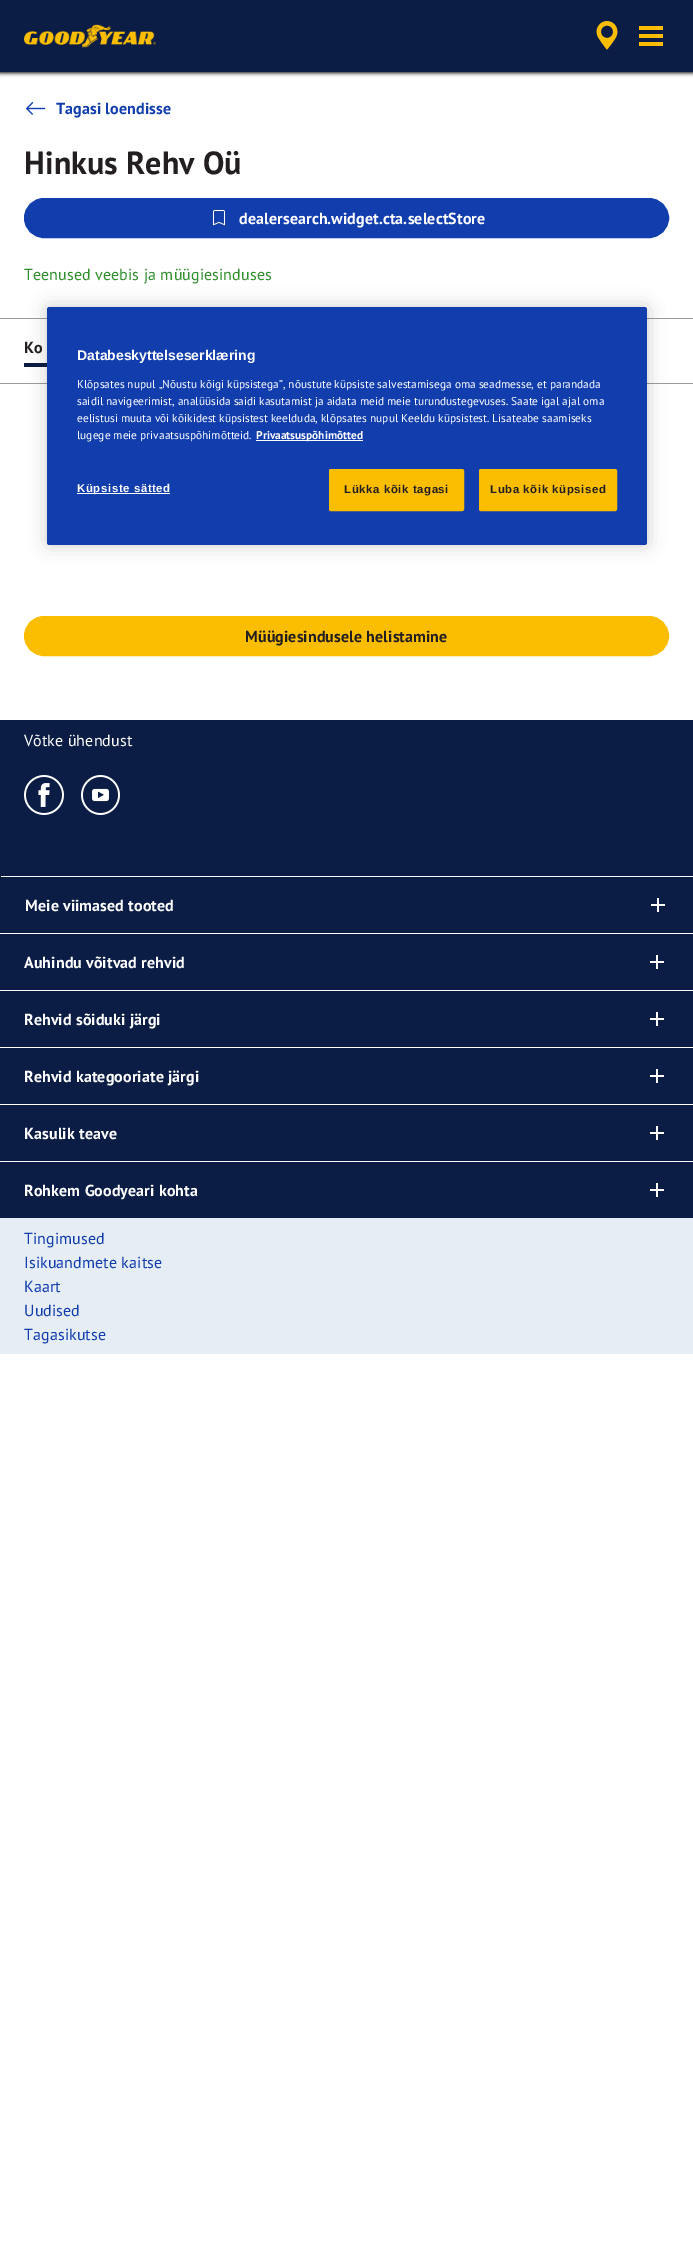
%!PS
<< /PageSize [693 2250] /PageUsesTransparency true >> setpagedevice
/rgb { dup -16 bitshift 255 div exch dup -8 bitshift 255 and 255 div exch 255 and 255 div setrgbcolor } def
/font { [ exch dup neg 0 0 3 -1 roll 0 0 ] selectfont } def
/text { moveto show } def
/alpha { dup .setfillconstantalpha .setstrokeconstantalpha } def
/roundrect { 5 dict begin { /r /h /w /y /x } { exch def } forall
  x r add y moveto x w add y 2 copy h add r arct x w add y h add x 1 index r arct
  x y h add x y r arct x y 2 copy exch w add exch r arct closepath end } def
/shadow { 12 dict begin { /a /b /q /h /w /y /x } { exch def } forall gsave /was 0 def
  9 -2 -9 { dup b mul 4 div /e exch def 1 sub .425 mul 2.718 exch exp 1 add a .99 .min exch div /now exch def
    1 1 now sub 1 was sub div sub alpha /was now def
    w h .min e 2 mul add 0 gt { x e sub y e sub w e 2 mul add h e 2 mul add
      q e add b .6 mul add w h .min 2 div e add .min 0 .max roundrect fill } if } for grestore end } def
/picture { 5 dict begin { /h /w /y /x /name } { exch def } forall
  gsave x y translate w h scale
  w h 8 [w 0 0 h 0 0] name (r) file false 3 colorimage grestore end } def
0 .pushpdf14devicefilter
0 2250 translate 1 -1 scale
4 setmiterlimit
/s1 { /LiberationSans-Bold 14 font 16#FFFFFF rgb } def
/s2 { /PTSans-Regular 11.4 font 16#FFFFFF rgb } def
/s3 { /PTSans-Bold 11.4 font 16#FFFFFF rgb } def
16#FFFFFF rgb
0 0 693 2250 rectfill
16#000000 rgb
0 1 693 72 0 2 1 shadow
16#0B1D45 rgb
0 0 693 72 rectfill
(pic1.raw) 24 24 132 24 picture
(pic2.raw) 596 21 22 29 picture
(pic3.raw) 639 26 24 20 picture
(pic4.raw) 26 102 20 13 picture
/PTSans-Bold 16 font
16#113DAD rgb
56 114 moveto 0.1 0 (Tagasi loendisse) ashow
/PTSans-Bold 32 font
16#231F20 rgb
24 174 moveto 0.1 0 (Hinkus Rehv Oü) ashow
16#113DAD rgb
25 199 643 38 19 roundrect gsave fill grestore
2 setlinewidth
stroke
(pic5.raw) 212 209 14 17 picture
/PTSans-Bold 16 font
16#FFFFFF rgb
239 224 moveto 0.1 0 (dealersearch.widget.cta.selectStore) ashow
/PTSans-Regular 16 font
16#308E2C rgb
24 280 moveto 0.1 0 (Teenused veebis ja müügiesinduses) ashow
16#9B9BA0 rgb
0 318 693 1 rectfill
0 383 693 1 rectfill
/PTSans-Bold 16 font
16#231F20 rgb
24 353 moveto 0.1 0 (Ko) ashow
16#0B1D45 rgb
24 363 23 4 rectfill
16#FBBD00 rgb
25 617 643 38 19 roundrect gsave fill grestore
stroke
16#231F20 rgb
245 642 moveto 0.1 0 (Müügiesindusele helistamine) ashow
16#000000 rgb
47 307 600 238 2.5 9 0.2 shadow
16#113DAD rgb
47 307 600 238 2.5 roundrect fill
s1
(Databeskyttelseserklæring) 77 360 text
s2
(Klõpsates nupul „Nõustu kõigi küpsistega”, nõustute küpsiste salvestamisega oma seadmesse, et parandada) 77 388 text
(saidil navigeerimist, analüüsida saidi kasutamist ja aidata meid meie turundustegevuses. Saate igal ajal oma) 77 405 text
(eelistusi muuta või kõikidest küpsistest keelduda, klõpsates nupul Keeldu küpsistest. Lisateabe saamiseks) 77 422 text
(lugege meie privaatsuspõhimõtteid.) 77 439 text
256 440 107 1 rectfill
s3
(Privaatsuspõhimõtted) 256 439 text
77 493 93 1 rectfill
/LiberationSans-Bold 11.4 font
77 492 moveto 0.6 0 (Küpsiste sätted) ashow
16#FBBD00 rgb
329.5 469.5 134 41 1.5 roundrect gsave fill grestore
1 setlinewidth
stroke
16#231F20 rgb
344 493 moveto 0.6 0 (Lükka kõik tagasi) ashow
16#FBBD00 rgb
479.5 469.5 137 41 1.5 roundrect gsave fill grestore
stroke
16#231F20 rgb
490 493 moveto 0.6 0 (Luba kõik küpsised) ashow
16#0B1D45 rgb
0 720 693 498 rectfill
/PTSans-Regular 16 font
16#FFFFFF rgb
24 746 moveto 0.1 0 (Võtke ühendust) ashow
(pic6.raw) 24 775 40 40 picture
(pic7.raw) 81 775 39 40 picture
1 876 692 1 rectfill
/PTSans-Bold 16 font
25 911 moveto 0.1 0 (Meie viimased tooted) ashow
(pic8.raw) 651 898 14 14 picture
0 933 693 1 rectfill
24 968 moveto 0.1 0 (Auhindu võitvad rehvid) ashow
(pic8.raw) 650 955 14 14 picture
0 990 693 1 rectfill
24 1025 moveto 0.1 0 (Rehvid sõiduki järgi) ashow
(pic8.raw) 650 1012 14 14 picture
0 1047 693 1 rectfill
24 1082 moveto 0.1 0 (Rehvid kategooriate järgi) ashow
(pic8.raw) 650 1069 14 14 picture
0 1104 693 1 rectfill
24 1139 moveto 0.1 0 (Kasulik teave) ashow
(pic8.raw) 650 1126 14 14 picture
0 1161 693 1 rectfill
24 1196 moveto 0.1 0 (Rohkem Goodyeari kohta) ashow
(pic8.raw) 650 1183 14 14 picture
16#E6EDF4 rgb
0 1218 693 136 rectfill
/PTSans-Regular 16 font
16#113DAD rgb
24 1244 moveto 0.1 0 (Tingimused) ashow
24 1268 moveto 0.1 0 (Isikuandmete kaitse) ashow
24 1292 moveto 0.1 0 (Kaart) ashow
24 1316 moveto 0.1 0 (Uudised) ashow
24 1340 moveto 0.1 0 (Tagasikutse) ashow
.poppdf14devicefilter showpage
